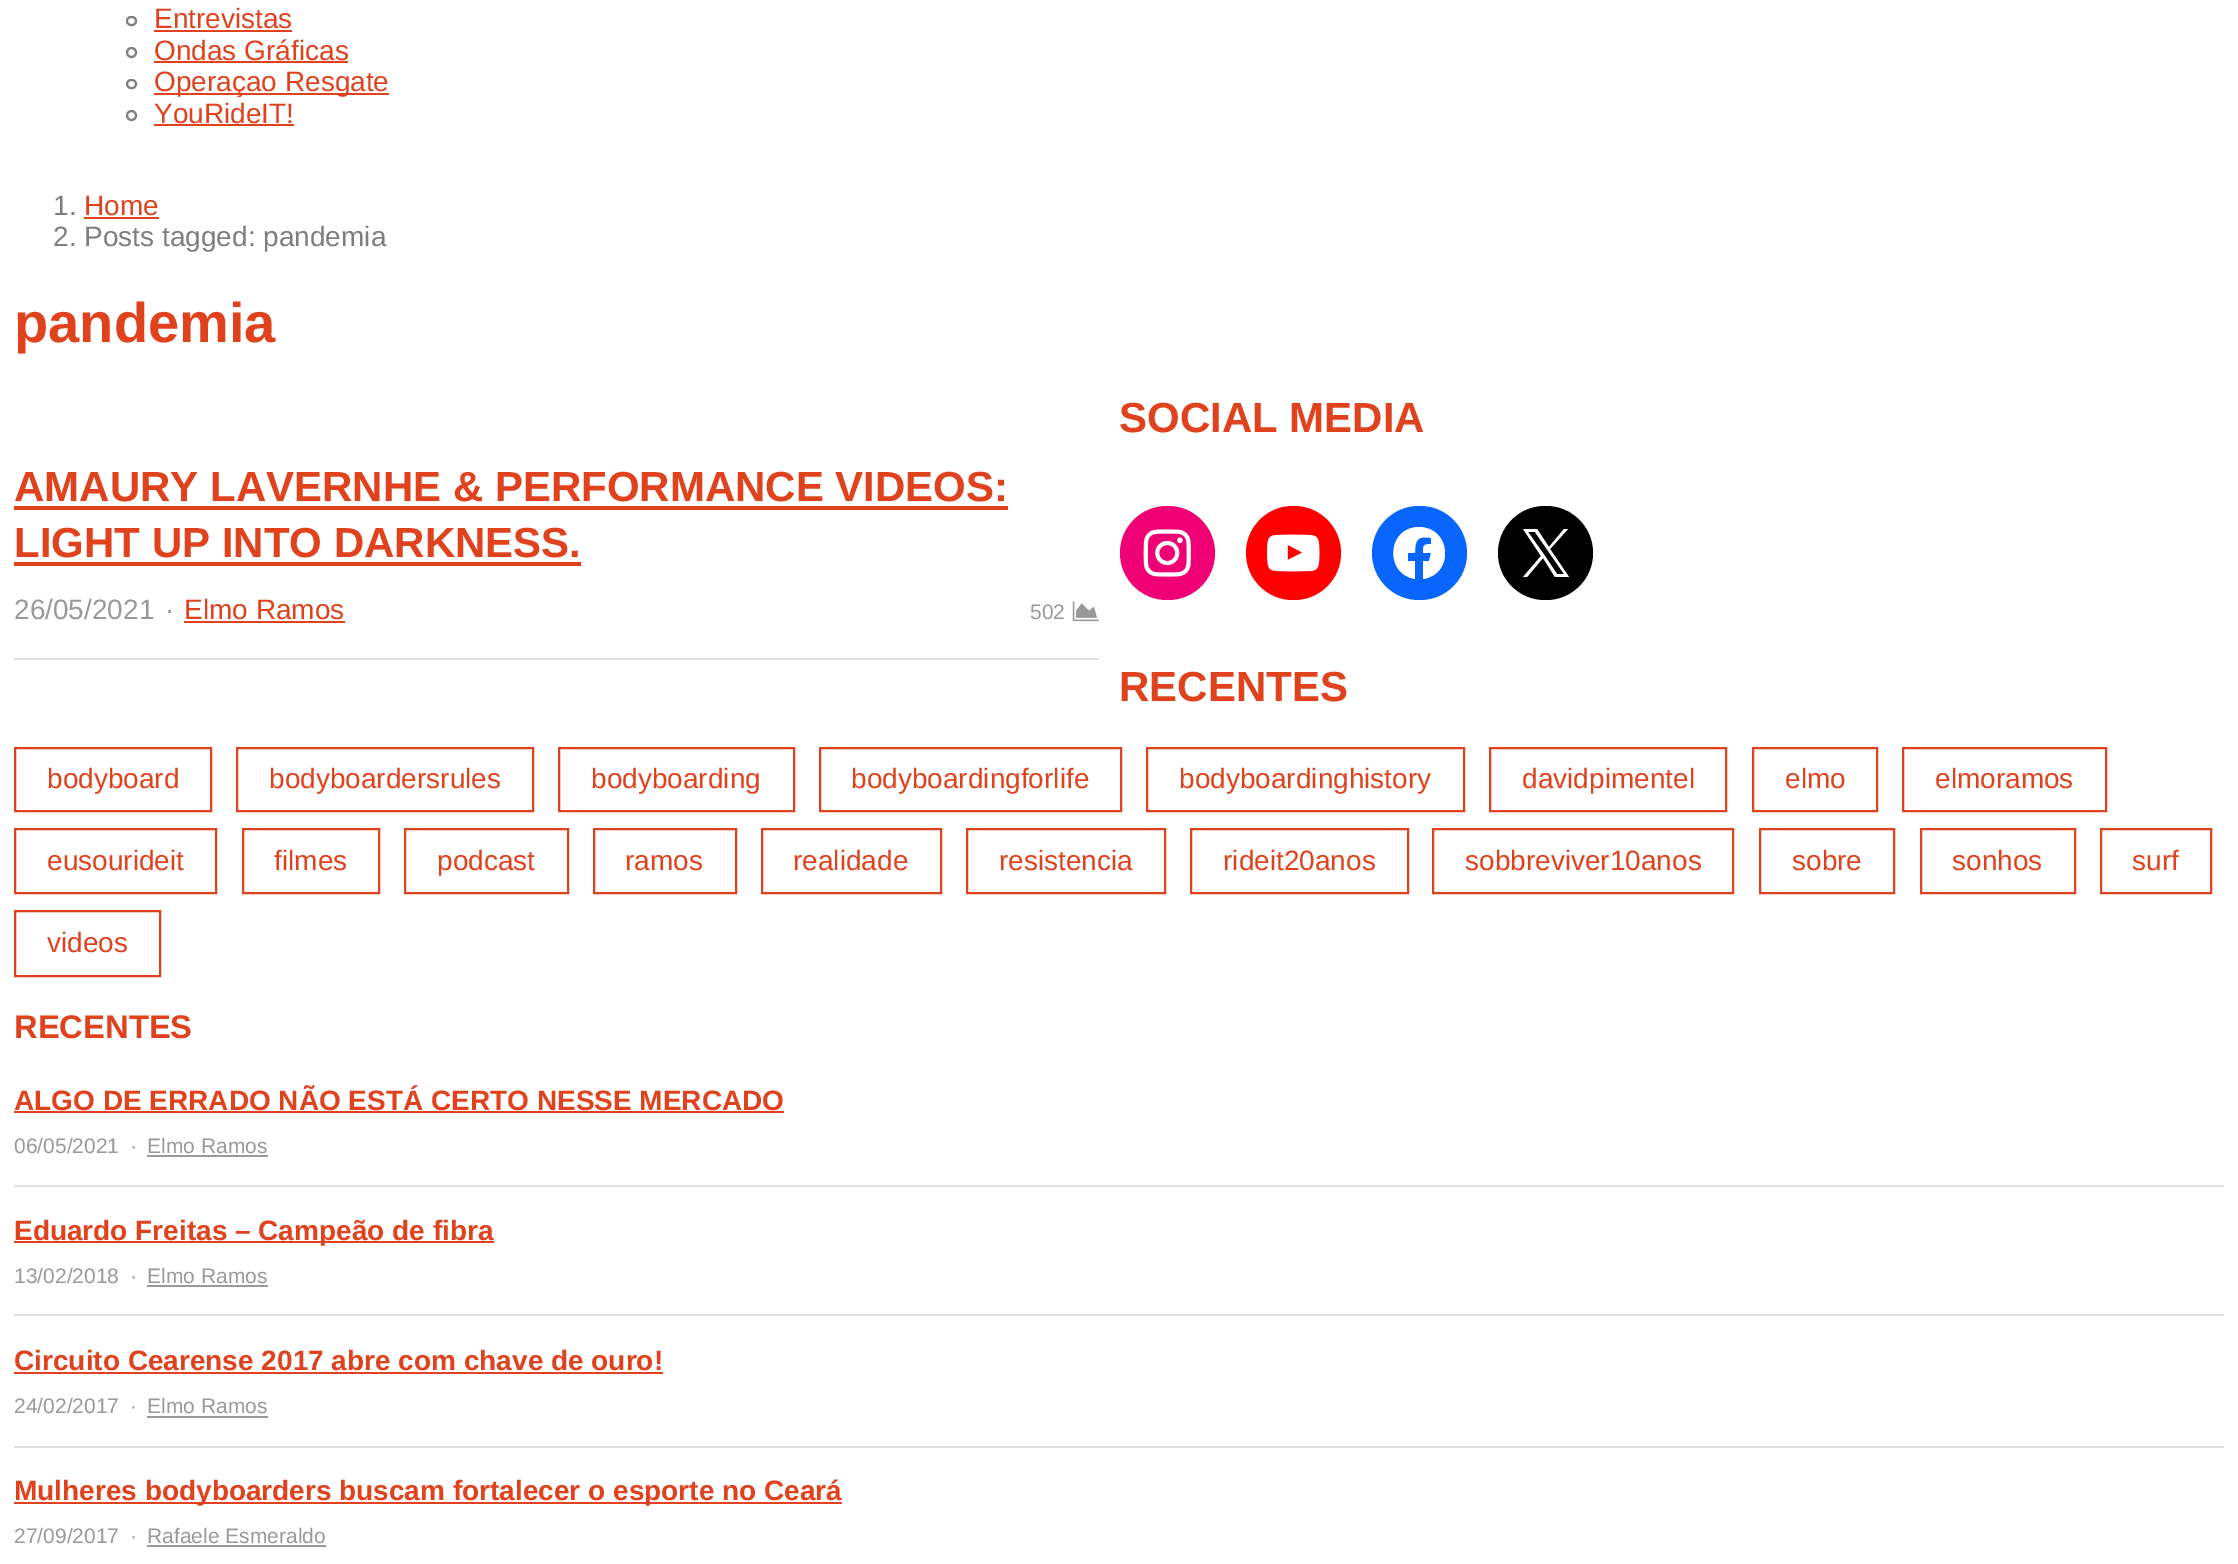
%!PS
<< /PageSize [2238 1564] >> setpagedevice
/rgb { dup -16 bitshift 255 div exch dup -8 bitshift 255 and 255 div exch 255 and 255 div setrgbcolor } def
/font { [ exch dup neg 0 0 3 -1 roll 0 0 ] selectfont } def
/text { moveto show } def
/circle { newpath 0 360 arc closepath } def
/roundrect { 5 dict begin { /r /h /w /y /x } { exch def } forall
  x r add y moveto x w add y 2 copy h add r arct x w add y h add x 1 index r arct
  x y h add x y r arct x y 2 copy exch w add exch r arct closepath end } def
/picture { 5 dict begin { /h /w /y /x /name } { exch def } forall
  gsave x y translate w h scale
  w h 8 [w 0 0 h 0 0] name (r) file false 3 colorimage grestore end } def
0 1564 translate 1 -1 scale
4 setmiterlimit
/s1 { /LiberationSans-Regular 28 font 16#DF421D rgb } def
/s2 { /LiberationSans-Regular 28 font 16#7E7E7E rgb } def
/s3 { /LiberationSans-Bold 56 font 16#DF421D rgb } def
/s4 { /LiberationSans-Bold 42 font 16#DF421D rgb } def
/s5 { /LiberationSans-Regular 28 font 16#999999 rgb } def
/s6 { /LiberationSans-Regular 21 font 16#999999 rgb } def
/s7 { /LiberationSans-Bold 32.75 font 16#DF421D rgb } def
/s8 { /LiberationSans-Bold 28 font 16#DF421D rgb } def
16#FFFFFF rgb
0 0 2238 1564 rectfill
16#7E7E7E rgb
2 setlinewidth
127 17 9 8 4 roundrect stroke
s1
(Entrevistas) 154 28 text
154 30 138 2 rectfill
16#7E7E7E rgb
131.5 52.5 4.5 circle stroke
s1
(Ondas Gráficas) 154 60 text
154 61 194 2 rectfill
16#7E7E7E rgb
127 80 9 8 4 roundrect stroke
16#DF421D rgb
154 93 235 2 rectfill
(Operaçao Resgate) 154 91 text
16#7E7E7E rgb
131.5 115.5 4.5 circle stroke
s1
(YouRideIT!) 154 123 text
154 124 140 2 rectfill
s2
(1.) 53 215 text
s1
(Home) 84 215 text
84 217 75 2 rectfill
s2
(2. Posts tagged: pandemia) 53 246 text
s3
(pandemia) 14 342 text
s4
(AMAURY LAVERNHE & PERFORMANCE VIDEOS:) 14 501 text
14 506 994 4 rectfill
(LIGHT UP INTO DARKNESS.) 14 557 text
14 562 567 4 rectfill
s5
(26/05/2021) 14 619 text
(·) 165 619 text
s1
(Elmo Ramos) 184 619 text
184 621 161 2 rectfill
s6
(502) 1030 619 text
(pic1.raw) 1072 601 27 21 picture
16#E0E0E0 rgb
14 658 1085 2 rectfill
s4
(SOCIAL MEDIA) 1119 432 text
16#F00075 rgb
1120 506 95 94 47 roundrect fill
(pic2.raw) 1143 529 48 48 picture
16#FF0000 rgb
1246 506 95 94 47 roundrect fill
(pic3.raw) 1267 534 53 38 picture
16#0866FF rgb
1372 506 95 94 47 roundrect fill
16#FFFFFF rgb
1419 527 moveto 1387 527 1384 574 1415 579 curveto 1415 561 lineto 1408 561 lineto 1408 553 lineto 1415 553 lineto 1415 541 1417 535 1431 538 curveto 1431 544 lineto 1423 544 1423 546 1423 553 curveto 1431 553 lineto 1429 561 lineto 1423 561 lineto 1423 579 lineto 1455 574 1451 527 1419 527 curveto closepath fill
16#000000 rgb
1498 506 95 94 47 roundrect fill
16#FFFFFF rgb
1550 549 moveto 1568 529 lineto 1564 529 lineto 1549 547 lineto 1537 529 lineto 1523 529 lineto 1541 556 lineto 1523 577 lineto 1527 577 lineto 1543 558 lineto 1555 577 lineto 1569 577 lineto closepath 1545 556 moveto 1528 532 lineto 1535 532 lineto 1564 574 lineto 1557 574 lineto closepath fill
s4
(RECENTES) 1119 701 text
15 748 196 63 rectstroke
s1
(bodyboard) 47 788 text
237 748 296 63 rectstroke
(bodyboardersrules) 269 788 text
559 748 235 63 rectstroke
(bodyboarding) 591 788 text
820 748 301 63 rectstroke
(bodyboardingforlife) 851 788 text
1147 748 317 63 rectstroke
(bodyboardinghistory) 1179 788 text
1490 748 236 63 rectstroke
(davidpimentel) 1522 788 text
1753 748 124 63 rectstroke
(elmo) 1785 788 text
1903 748 203 63 rectstroke
(elmoramos) 1935 788 text
15 829 201 64 rectstroke
(eusourideit) 47 870 text
243 829 136 64 rectstroke
(filmes) 274 870 text
405 829 163 64 rectstroke
(podcast) 437 870 text
594 829 142 64 rectstroke
(ramos) 625 870 text
762 829 179 64 rectstroke
(realidade) 793 870 text
967 829 198 64 rectstroke
(resistencia) 999 870 text
1191 829 217 64 rectstroke
(rideit20anos) 1223 870 text
1433 829 300 64 rectstroke
(sobbreviver10anos) 1465 870 text
1760 829 134 64 rectstroke
(sobre) 1792 870 text
1921 829 154 64 rectstroke
(sonhos) 1952 870 text
2101 829 110 64 rectstroke
(surf) 2132 870 text
15 911 145 65 rectstroke
(videos) 47 952 text
s7
(RECENTES) 14 1038 text
s8
(ALGO DE ERRADO NÃO ESTÁ CERTO NESSE MERCADO) 14 1110 text
14 1111 770 2 rectfill
s6
(06/05/2021) 14 1153 text
(·) 130 1153 text
(Elmo Ramos) 147 1153 text
147 1155 121 2 rectfill
16#E0E0E0 rgb
14 1185 2210 2 rectfill
16#DF421D rgb
14 1241 480 2 rectfill
s8
(Eduardo Freitas – Campeão de fibra) 14 1240 text
s6
(13/02/2018) 14 1283 text
(·) 130 1283 text
(Elmo Ramos) 147 1283 text
147 1285 121 2 rectfill
16#E0E0E0 rgb
14 1314 2210 2 rectfill
s8
(Circuito Cearense 2017 abre com chave de ouro!) 14 1370 text
14 1372 649 2 rectfill
s6
(24/02/2017) 14 1413 text
(·) 130 1413 text
(Elmo Ramos) 147 1413 text
147 1416 121 2 rectfill
16#E0E0E0 rgb
14 1446 2210 2 rectfill
16#DF421D rgb
14 1502 828 2 rectfill
s8
(Mulheres bodyboarders buscam fortalecer o esporte no Ceará) 14 1500 text
s6
(27/09/2017) 14 1543 text
(·) 130 1543 text
(Rafaele Esmeraldo) 147 1543 text
147 1545 179 2 rectfill
showpage
